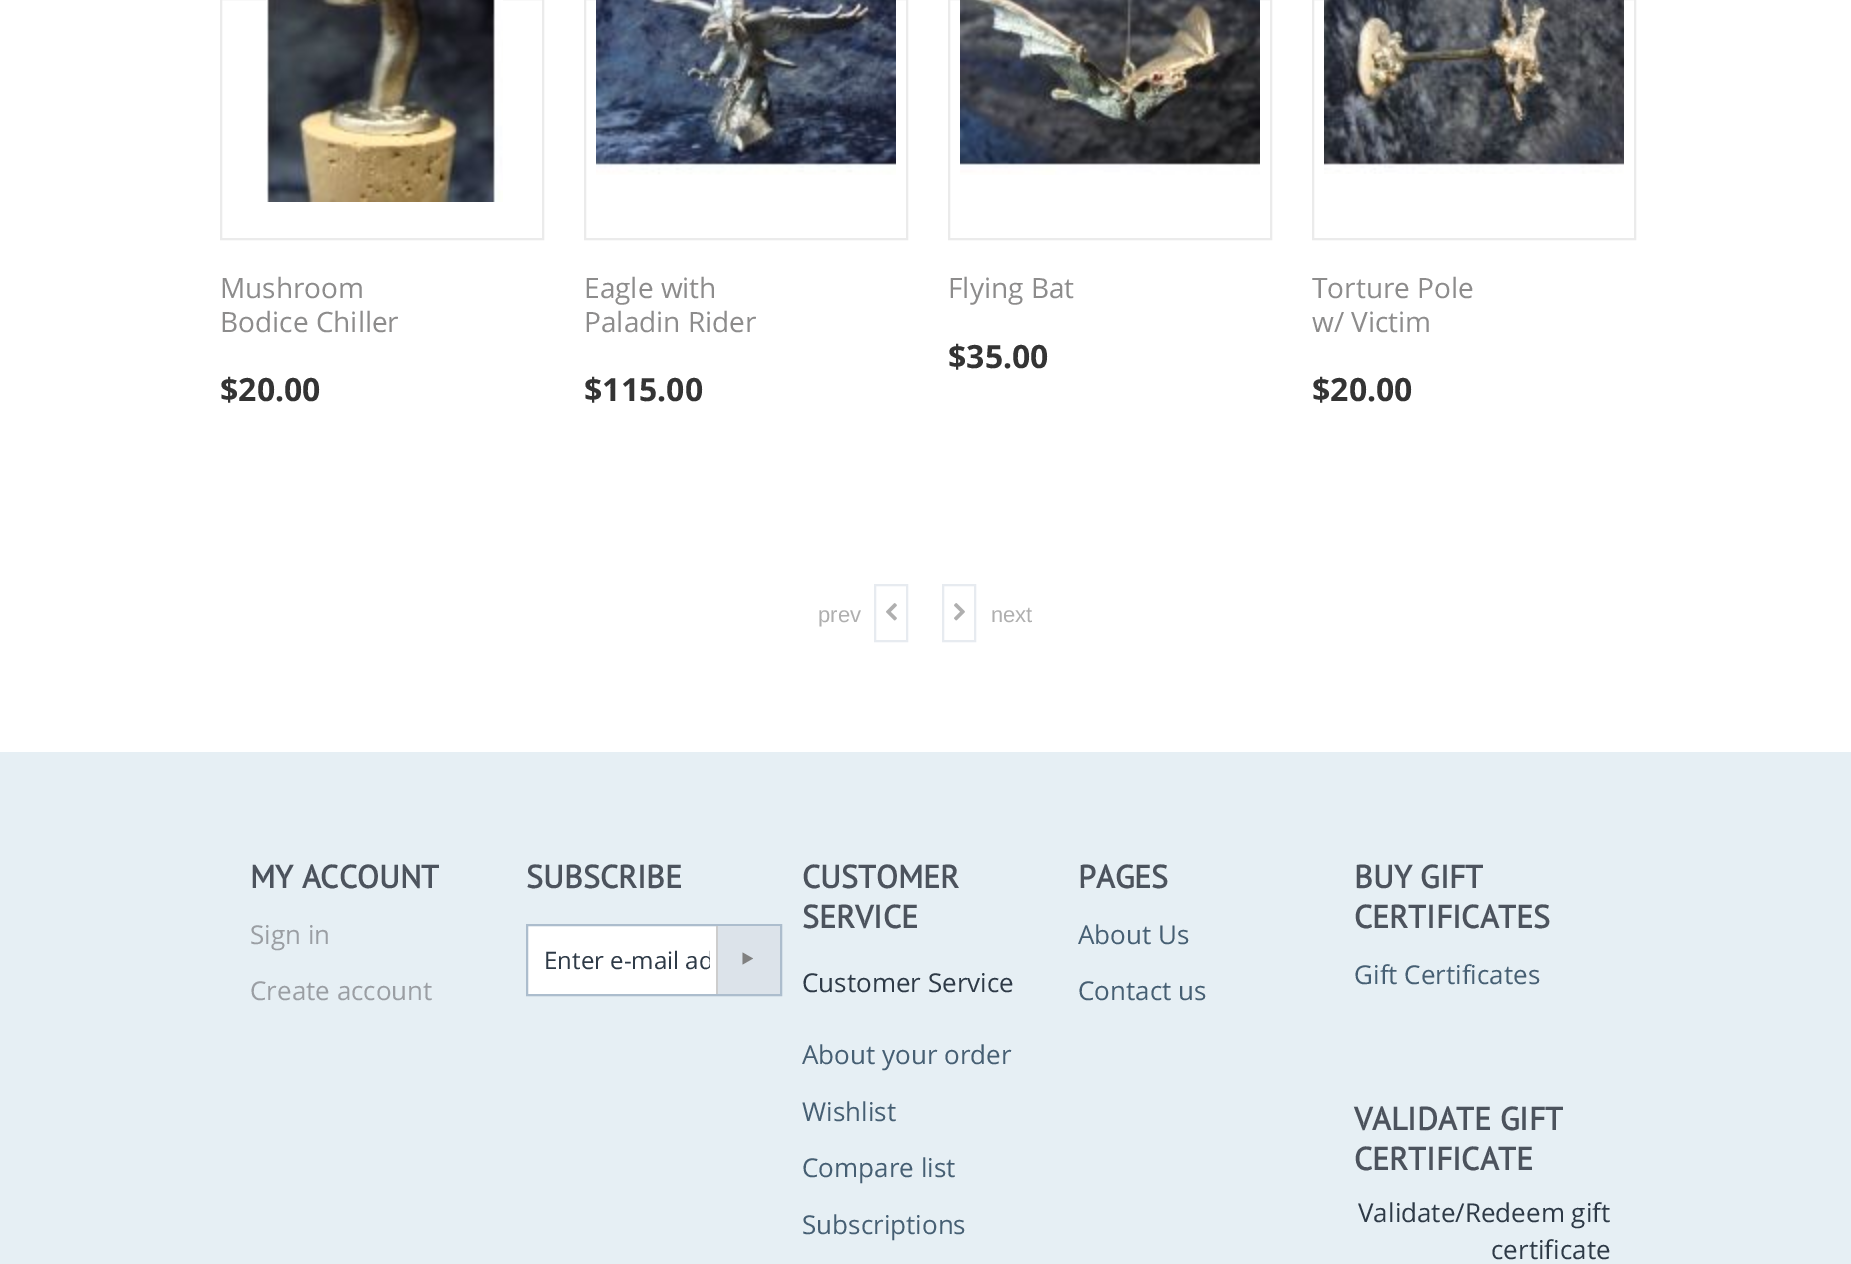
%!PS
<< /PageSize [1851 1264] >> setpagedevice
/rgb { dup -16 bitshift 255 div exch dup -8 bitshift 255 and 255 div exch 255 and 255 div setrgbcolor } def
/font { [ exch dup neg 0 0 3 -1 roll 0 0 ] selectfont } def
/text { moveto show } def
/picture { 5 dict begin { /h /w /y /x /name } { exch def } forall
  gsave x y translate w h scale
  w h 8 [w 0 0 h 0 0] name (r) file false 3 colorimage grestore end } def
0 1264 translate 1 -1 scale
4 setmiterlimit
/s1 { /OpenSans-Regular 28 font 16#8D8C8C rgb } def
/s2 { /OpenSans-Bold 32 font 16#343434 rgb } def
/s3 { /LiberationSans-Regular 22 font 16#AFAFAF rgb } def
/s4 { /PTSans-Bold 32 font 16#4C535D rgb } def
/s5 { /OpenSans-Regular 26 font 16#9A9EA3 rgb } def
/s6 { /OpenSans-Regular 24 font 16#2E3A47 rgb } def
/s7 { /OpenSans-Regular 26 font 16#2E3A47 rgb } def
/s8 { /OpenSans-Regular 26 font 16#465F73 rgb } def
16#FFFFFF rgb
0 0 1851 1264 rectfill
16#EBEBEB rgb
2 setlinewidth
221 -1 322 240 rectstroke
(pic1.raw) 266 0 237 202 picture
s1
(Mushroom) 220 298 text
(Bodice Chiller) 220 332 text
s2
($20.00) 220 401 text
16#EBEBEB rgb
585 -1 322 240 rectstroke
(pic2.raw) 596 0 300 175 picture
s1
(Eagle with) 584 298 text
(Paladin Rider) 584 332 text
s2
($115.00) 584 401 text
16#EBEBEB rgb
949 -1 322 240 rectstroke
(pic3.raw) 960 0 300 175 picture
s1
(Flying Bat) 948 298 text
s2
($35.00) 948 368 text
16#EBEBEB rgb
1313 -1 322 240 rectstroke
(pic4.raw) 1324 0 300 174 picture
s1
(Torture Pole) 1312 298 text
(w/ Victim) 1312 332 text
s2
($20.00) 1312 401 text
s3
(prev) 818 622 text
16#E7EBF0 rgb
875 585 32 56 rectstroke
(pic5.raw) 886 603 11 18 picture
943 585 32 56 rectstroke
(pic6.raw) 954 603 11 18 picture
s3
(next) 991 622 text
16#E6EFF4 rgb
0 752 1851 512 rectfill
s4
(MY ACCOUNT) 250 888 text
s5
(Sign in) 250 944 text
(Create account) 250 1000 text
s4
(SUBSCRIBE) 526 888 text
16#FFFFFF rgb
528 926 188 68 rectfill
16#ACBDCD rgb
527 925 254 70 rectstroke
gsave
544 944 166 34 rectclip
s6
(Enter e-mail ad) 544 969 text
grestore
16#DCE3EA rgb
718 926 62 68 rectfill
16#CDCDCD rgb
716 926 2 68 rectfill
16#808080 rgb
742.5 952.5 moveto 753 958.5 lineto 742.5 964.5 lineto closepath fill
s4
(CUSTOMER) 802 888 text
(SERVICE) 802 928 text
s7
(Customer Service) 802 992 text
s8
(About your order) 802 1064 text
(Wishlist) 802 1121 text
(Compare list) 802 1177 text
(Subscriptions) 802 1234 text
s4
(PAGES) 1078 888 text
s8
(About Us) 1078 944 text
(Contact us) 1078 1000 text
s4
(BUY GIFT) 1354 888 text
(CERTIFICATES) 1354 928 text
s8
(Gift Certificates) 1354 984 text
s4
(VALIDATE GIFT) 1354 1130 text
(CERTIFICATE) 1354 1170 text
s7
(Validate/Redeem gift) 1358 1222 text
(certificate) 1491 1259 text
showpage
